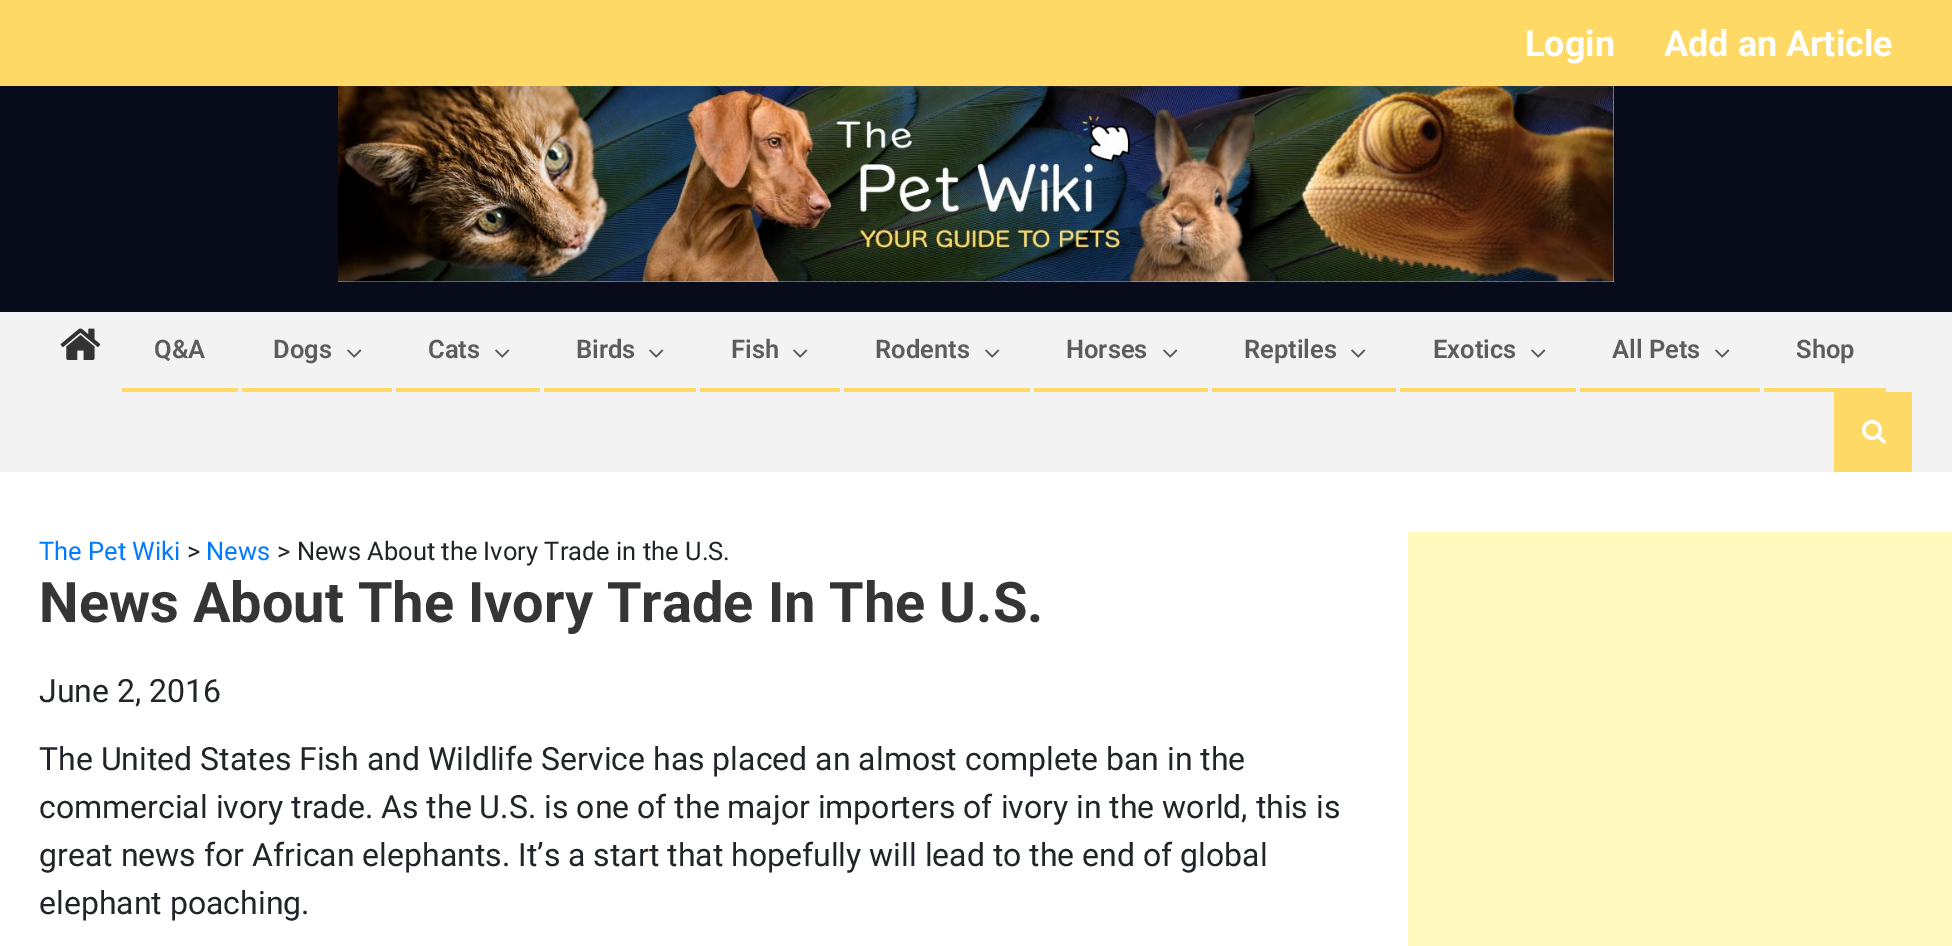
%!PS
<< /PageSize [1952 946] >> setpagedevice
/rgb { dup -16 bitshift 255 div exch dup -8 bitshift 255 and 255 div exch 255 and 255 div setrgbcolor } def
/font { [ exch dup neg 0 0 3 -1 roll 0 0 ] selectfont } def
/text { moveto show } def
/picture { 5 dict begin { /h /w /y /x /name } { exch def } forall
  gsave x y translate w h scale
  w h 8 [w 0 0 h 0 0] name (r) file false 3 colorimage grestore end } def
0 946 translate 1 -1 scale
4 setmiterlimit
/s1 { /Roboto-Bold 36 font 16#FFFFFF rgb } def
/s2 { /Roboto-SemiBold 25.5 font 16#5D5C5C rgb } def
/s3 { /Roboto-Regular 25.5 font 16#007BFF rgb } def
/s4 { /Roboto-Regular 25.5 font 16#212529 rgb } def
/s5 { /Roboto-Bold 56 font 16#353535 rgb } def
/s6 { /Roboto-Regular 32 font 16#212529 rgb } def
16#FFFFFF rgb
0 0 1952 946 rectfill
16#FFD965 rgb
0 0 1952 86 rectfill
s1
(Login) 1525 56 text
(Add an Article) 1664 56 text
16#070B1A rgb
0 86 1952 226 rectfill
(pic1.raw) 338 86 1276 196 picture
16#F3F3F3 rgb
0 312 1952 160 rectfill
(pic2.raw) 60 328 41 32 picture
16#FFD965 rgb
122 388 116 4 rectfill
s2
(Q&A) 154 358 text
16#FFD965 rgb
242 388 150 4 rectfill
s2
(Dogs) 273 358 text
(pic3.raw) 347 349 15 9 picture
16#FFD965 rgb
396 388 144 4 rectfill
s2
(Cats) 428 358 text
(pic3.raw) 495 349 15 9 picture
16#FFD965 rgb
544 388 152 4 rectfill
s2
(Birds) 576 358 text
(pic3.raw) 649 349 15 9 picture
16#FFD965 rgb
700 388 140 4 rectfill
s2
(Fish) 731 358 text
(pic3.raw) 793 349 15 9 picture
16#FFD965 rgb
844 388 186 4 rectfill
s2
(Rodents) 875 358 text
(pic3.raw) 985 349 15 9 picture
16#FFD965 rgb
1034 388 174 4 rectfill
s2
(Horses) 1066 358 text
(pic3.raw) 1163 349 15 9 picture
16#FFD965 rgb
1212 388 184 4 rectfill
s2
(Reptiles) 1244 358 text
(pic3.raw) 1351 349 15 9 picture
16#FFD965 rgb
1400 388 176 4 rectfill
s2
(Exotics) 1433 358 text
(pic3.raw) 1531 349 15 9 picture
16#FFD965 rgb
1580 388 180 4 rectfill
s2
(All Pets) 1612 358 text
(pic3.raw) 1715 349 15 9 picture
16#FFD965 rgb
1764 388 122 4 rectfill
s2
(Shop) 1796 358 text
16#FFD965 rgb
1834 392 78 80 rectfill
(pic4.raw) 1862 420 24 24 picture
s3
(The Pet Wiki) 39 560 text
s4
(>) 187 560 text
s3
(News) 206 560 text
s4
(> News About the Ivory Trade in the U.S.) 277 560 text
s5
(News About The Ivory Trade In The U.S.) 39 622 text
s6
(June 2, 2016) 39 702 text
(The United States Fish and Wildlife Service has placed an almost complete ban in the) 39 770 text
(commercial ivory trade. As the U.S. is one of the major importers of ivory in the world, this is) 39 818 text
(great news for African elephants. It’s a start that hopefully will lead to the end of global) 39 866 text
(elephant poaching.) 39 914 text
16#FFF9C0 rgb
1408 532 544 414 rectfill
showpage
